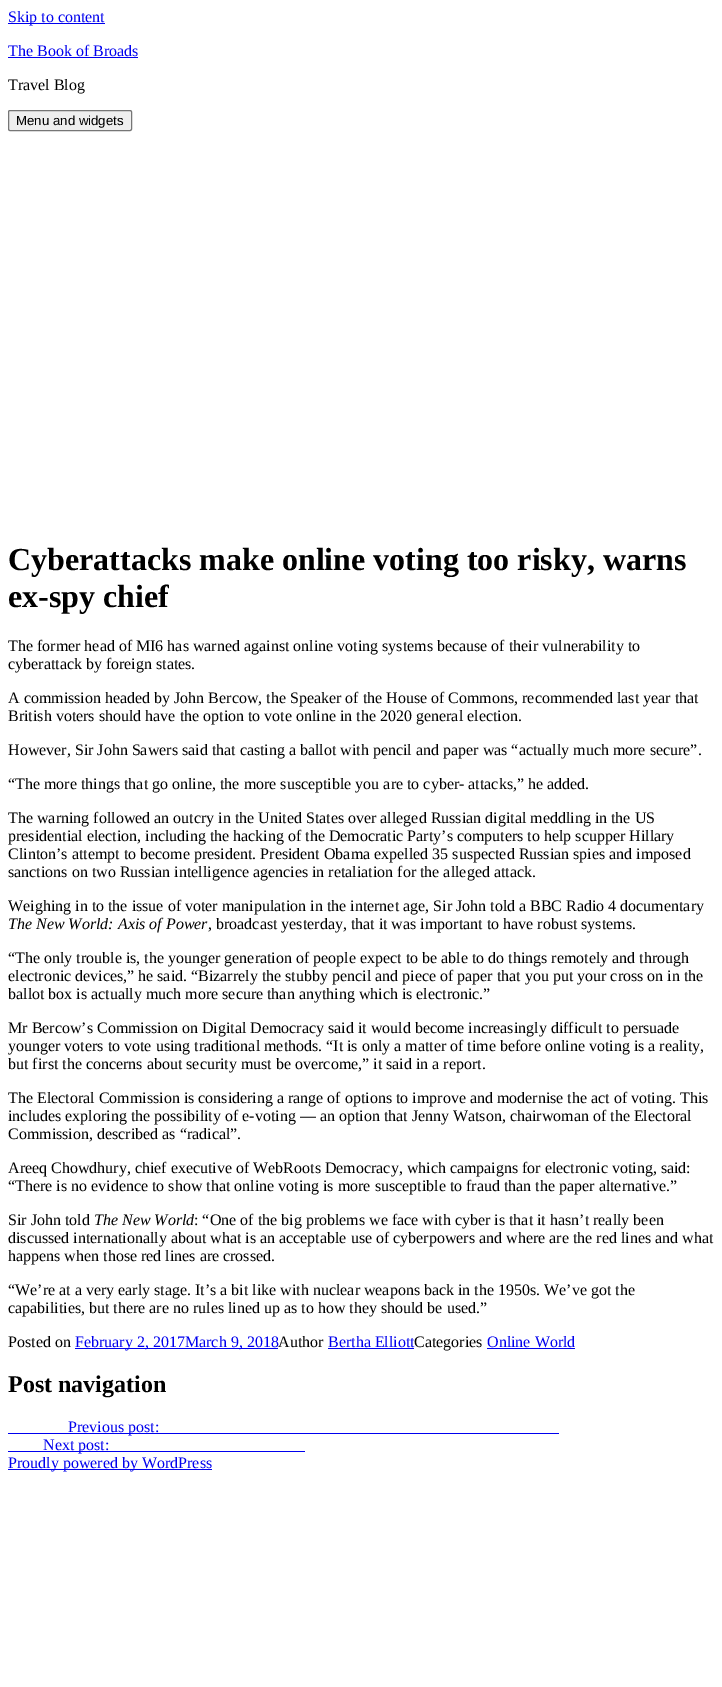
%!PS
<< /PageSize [722 1687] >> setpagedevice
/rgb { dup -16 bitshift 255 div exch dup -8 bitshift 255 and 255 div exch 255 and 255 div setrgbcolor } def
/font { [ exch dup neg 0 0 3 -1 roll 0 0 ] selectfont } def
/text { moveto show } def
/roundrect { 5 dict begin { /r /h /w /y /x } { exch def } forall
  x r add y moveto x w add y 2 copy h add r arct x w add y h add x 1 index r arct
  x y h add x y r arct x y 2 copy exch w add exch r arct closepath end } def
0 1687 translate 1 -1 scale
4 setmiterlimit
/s1 { /LiberationSerif-Regular 16 font 16#0000EE rgb } def
/s2 { /LiberationSerif-Regular 16 font 16#000000 rgb } def
/s3 { /LiberationSans-Regular 13.25 font 16#000000 rgb } def
/s4 { /LiberationSerif-Bold 32 font 16#000000 rgb } def
/s5 { /LiberationSerif-Italic 16 font 16#000000 rgb } def
/s6 { /LiberationSerif-Bold 24 font 16#000000 rgb } def
16#FFFFFF rgb
0 0 722 1687 rectfill
16#0000EE rgb
8 23 97 1 rectfill
s1
(Skip to content) 8 22 text
(The Book of Broads) 8 56 text
8 57 130 1 rectfill
s2
(Travel Blog) 8 90 text
16#EFEFEF rgb
8.5 110.5 123 20 1.5 roundrect gsave fill grestore
16#767676 rgb
stroke
s3
(Menu and widgets) 16 125 text
s4
(Cyberattacks make online voting too risky, warns) 8 570 text
(ex-spy chief) 8 607 text
s2
(The former head of MI6 has warned against online voting systems because of their vulnerability to) 8 651 text
(cyberattack by foreign states.) 8 669 text
(A commission headed by John Bercow, the Speaker of the House of Commons, recommended last year that) 8 703 text
(British voters should have the option to vote online in the 2020 general election.) 8 721 text
(However, Sir John Sawers said that casting a ballot with pencil and paper was “actually much more secure”.) 8 755 text
(“The more things that go online, the more susceptible you are to cyber- attacks,” he added.) 8 789 text
(The warning followed an outcry in the United States over alleged Russian digital meddling in the US) 8 823 text
(presidential election, including the hacking of the Democratic Party’s computers to help scupper Hillary) 8 841 text
(Clinton’s attempt to become president. President Obama expelled 35 suspected Russian spies and imposed) 8 859 text
(sanctions on two Russian intelligence agencies in retaliation for the alleged attack.) 8 877 text
(Weighing in to the issue of voter manipulation in the internet age, Sir John told a BBC Radio 4 documentary) 8 911 text
s5
(The New World: Axis of Power) 8 929 text
s2
(, broadcast yesterday, that it was important to have robust systems.) 208 929 text
(“The only trouble is, the younger generation of people expect to be able to do things remotely and through) 8 963 text
(electronic devices,” he said. “Bizarrely the stubby pencil and piece of paper that you put your cross on in the) 8 981 text
(ballot box is actually much more secure than anything which is electronic.”) 8 999 text
(Mr Bercow’s Commission on Digital Democracy said it would become increasingly difficult to persuade) 8 1033 text
(younger voters to vote using traditional methods. “It is only a matter of time before online voting is a reality,) 8 1051 text
(but first the concerns about security must be overcome,” it said in a report.) 8 1069 text
(The Electoral Commission is considering a range of options to improve and modernise the act of voting. This) 8 1103 text
(includes exploring the possibility of e-voting — an option that Jenny Watson, chairwoman of the Electoral) 8 1121 text
(Commission, described as “radical”.) 8 1139 text
(Areeq Chowdhury, chief executive of WebRoots Democracy, which campaigns for electronic voting, said:) 8 1173 text
(“There is no evidence to show that online voting is more susceptible to fraud than the paper alternative.”) 8 1191 text
(Sir John told) 8 1225 text
s5
(The New World) 94 1225 text
s2
(: “One of the big problems we face with cyber is that it hasn’t really been) 194 1225 text
(discussed internationally about what is an acceptable use of cyberpowers and where are the red lines and what) 8 1243 text
(happens when those red lines are crossed.) 8 1261 text
(“We’re at a very early stage. It’s a bit like with nuclear weapons back in the 1950s. We’ve got the) 8 1295 text
(capabilities, but there are no rules lined up as to how they should be used.”) 8 1313 text
(Posted on) 8 1347 text
16#0000EE rgb
75 1348 203 1 rectfill
(February 2, 2017March 9, 2018) 75 1347 text
s2
(Author) 278 1347 text
s1
(Bertha Elliott) 328 1347 text
328 1348 86 1 rectfill
s2
(Categories) 414 1347 text
16#0000EE rgb
487 1348 88 1 rectfill
(Online World) 487 1347 text
s6
(Post navigation) 8 1392 text
16#0000EE rgb
8 1433 551 1 rectfill
s1
(Previous post:) 68 1432 text
8 1451 297 1 rectfill
(Next post:) 43 1450 text
8 1469 204 1 rectfill
(Proudly powered by WordPress) 8 1468 text
showpage
